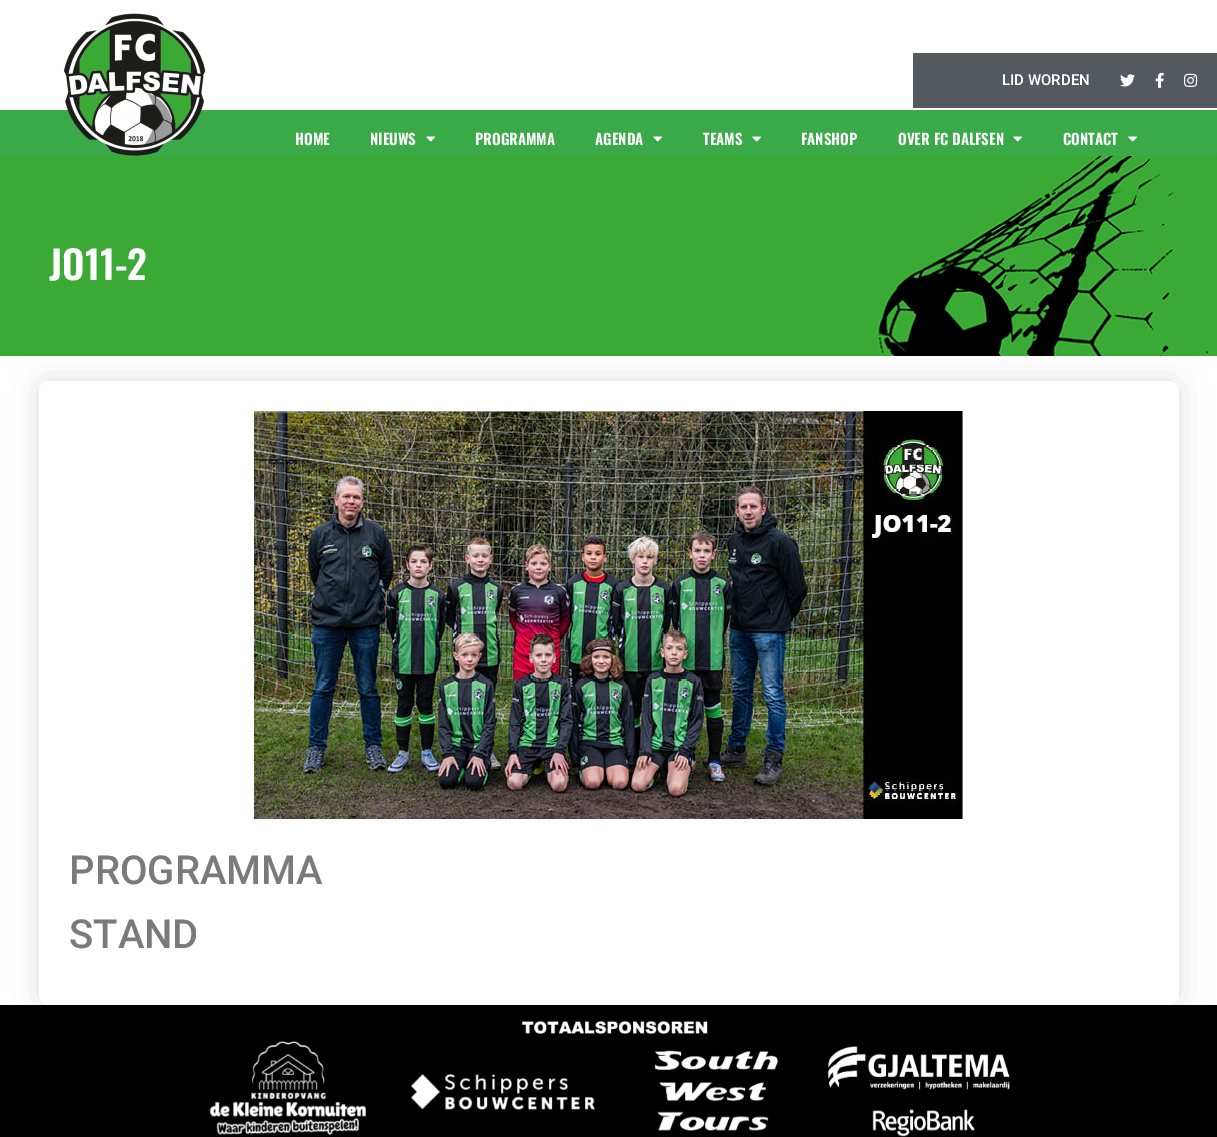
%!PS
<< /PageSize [1217 1137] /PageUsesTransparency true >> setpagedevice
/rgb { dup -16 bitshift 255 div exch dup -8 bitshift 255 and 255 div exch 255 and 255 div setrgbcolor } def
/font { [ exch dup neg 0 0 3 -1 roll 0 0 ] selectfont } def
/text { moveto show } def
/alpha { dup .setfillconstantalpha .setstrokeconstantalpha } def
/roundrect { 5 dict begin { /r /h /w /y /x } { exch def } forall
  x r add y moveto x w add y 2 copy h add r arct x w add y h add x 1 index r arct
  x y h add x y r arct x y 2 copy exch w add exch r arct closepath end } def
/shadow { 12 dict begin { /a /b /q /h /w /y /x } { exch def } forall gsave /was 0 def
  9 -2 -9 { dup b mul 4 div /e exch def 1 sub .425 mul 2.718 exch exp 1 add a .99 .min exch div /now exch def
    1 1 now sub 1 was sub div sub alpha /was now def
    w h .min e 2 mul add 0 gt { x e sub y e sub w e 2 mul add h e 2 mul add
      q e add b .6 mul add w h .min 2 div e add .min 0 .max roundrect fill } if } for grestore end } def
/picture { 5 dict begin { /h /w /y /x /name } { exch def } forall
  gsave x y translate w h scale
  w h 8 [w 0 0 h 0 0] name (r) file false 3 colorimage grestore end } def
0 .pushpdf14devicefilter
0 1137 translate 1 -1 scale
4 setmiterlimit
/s1 { /Roboto-Medium 15 font 16#FFFFFF rgb } def
/s2 { /Oswald-SemiBold 15 font 16#FFFFFF rgb } def
/s3 { /Oswald-SemiBold 39 font 16#FFFFFF rgb } def
/s4 { /Roboto-Medium 40 font 16#7A7A7A rgb } def
16#FFFFFF rgb
0 0 1217 1137 rectfill
16#3AAA49 rgb
0 110 1217 56 rectfill
(pic1.raw) 63 13 143 143 picture
16#54595F rgb
913 53 304 55 rectfill
s1
(LID WORDEN) 1002 85 text
(pic2.raw) 1120 74 15 13 picture
(pic3.raw) 1155 72 9 16 picture
(pic4.raw) 1184 73 14 14 picture
s2
(HOME) 295 145 text
(NIEUWS) 370 145 text
(pic5.raw) 426 136 9 6 picture
(PROGRAMMA) 475 145 text
(AGENDA) 595 145 text
(pic5.raw) 653 136 9 6 picture
(TEAMS) 703 145 text
(pic5.raw) 752 136 9 6 picture
(FANSHOP) 801 145 text
(OVER FC DALFSEN) 898 145 text
(pic5.raw) 1013 136 9 6 picture
(CONTACT) 1063 145 text
(pic5.raw) 1128 136 9 6 picture
(pic6.raw) 0 156 1217 200 picture
s3
(JO11-2) 49 280 text
16#000000 rgb
39 381 1140 624 10 15 0.13 shadow
16#FFFFFF rgb
39 381 1140 624 10 roundrect fill
(pic7.raw) 254 411 709 408 picture
s4
(PROGRAMMA) 69 884 text
(STAND) 69 948 text
16#000000 rgb
0 1005 1217 132 rectfill
(pic8.raw) 209 1020 801 117 picture
.poppdf14devicefilter showpage
